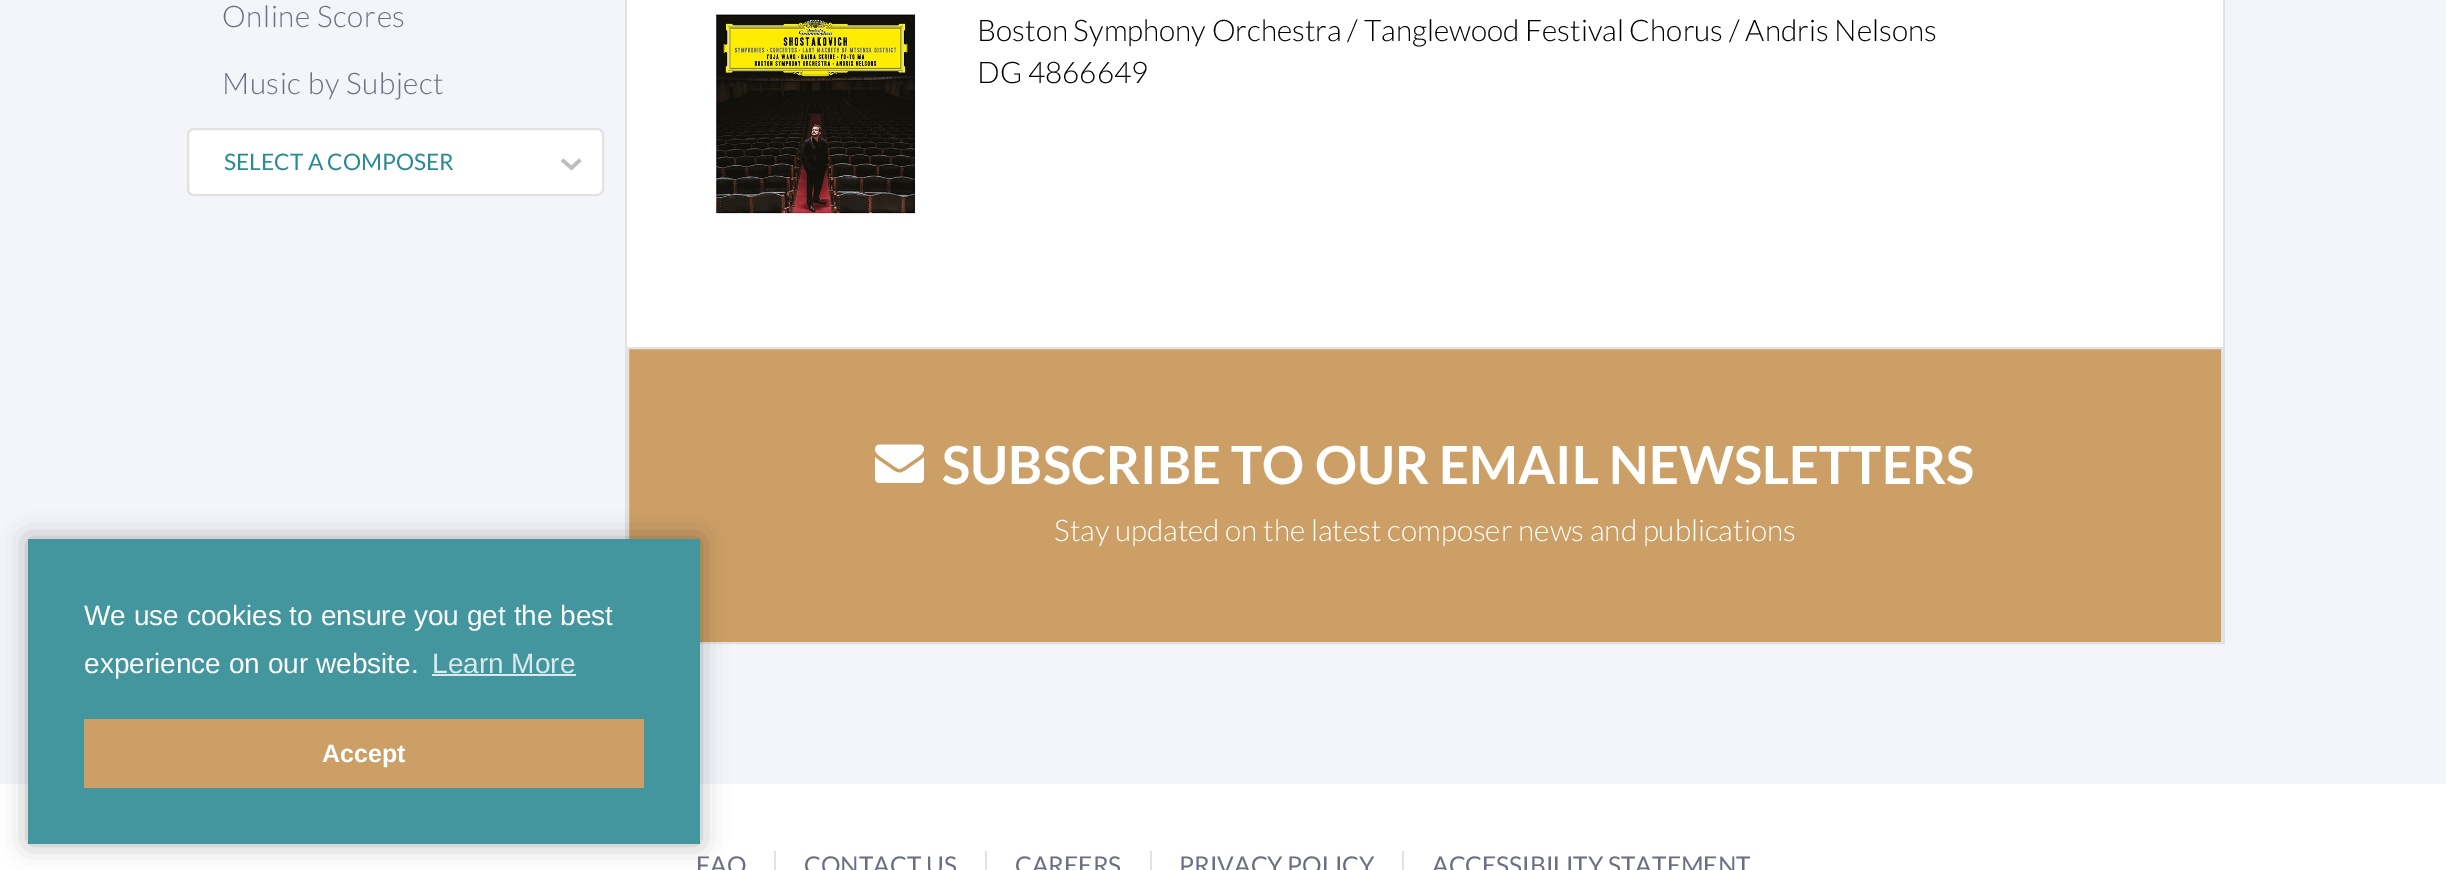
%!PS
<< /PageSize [2446 870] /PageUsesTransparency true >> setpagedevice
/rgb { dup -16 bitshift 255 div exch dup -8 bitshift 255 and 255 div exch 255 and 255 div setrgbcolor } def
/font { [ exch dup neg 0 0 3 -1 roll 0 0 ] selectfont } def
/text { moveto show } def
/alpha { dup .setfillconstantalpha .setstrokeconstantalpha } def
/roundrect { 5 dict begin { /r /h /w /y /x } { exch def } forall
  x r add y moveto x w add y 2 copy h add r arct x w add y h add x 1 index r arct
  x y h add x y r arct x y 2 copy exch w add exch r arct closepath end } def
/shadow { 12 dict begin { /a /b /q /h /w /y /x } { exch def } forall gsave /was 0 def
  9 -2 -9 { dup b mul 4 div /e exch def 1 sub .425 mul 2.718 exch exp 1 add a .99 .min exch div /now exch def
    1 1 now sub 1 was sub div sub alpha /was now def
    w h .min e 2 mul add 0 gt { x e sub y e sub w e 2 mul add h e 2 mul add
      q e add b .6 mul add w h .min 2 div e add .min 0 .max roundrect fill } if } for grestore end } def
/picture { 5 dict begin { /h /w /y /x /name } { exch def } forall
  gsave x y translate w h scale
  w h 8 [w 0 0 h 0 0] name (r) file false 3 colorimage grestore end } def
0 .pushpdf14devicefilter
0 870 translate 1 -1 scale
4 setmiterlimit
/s1 { /Lato-Regular 22.75 font 16#2A8C92 rgb } def
/s2 { /Lato-Light 29.75 font 16#000000 rgb } def
/s3 { /Lato-Bold 52.5 font 16#FFFFFF rgb } def
/s4 { /Lato-Light 29.75 font 16#FFFFFF rgb } def
/s5 { /LiberationSans-Regular 28 font 16#FFFFFF rgb } def
/s6 { /LiberationSans-Regular 28 font 16#D9EAEC rgb } def
/s7 { /LiberationSans-Bold 25 font 16#FFFFFF rgb } def
/s8 { /Lato-Regular 24.5 font 16#6B6F81 rgb } def
16#F4F5FA rgb
0 0 2446 870 rectfill
/Lato-Light 29.75 font
16#6B6F81 rgb
222 27 moveto 0.6 0 (Online Scores) ashow
222 94 moveto 0.6 0 (Music by Subject) ashow
16#FFFFFF rgb
188 129 415 66 6 roundrect gsave fill grestore
16#E2E2E2 rgb
2 setlinewidth
stroke
s1
(SELECT A COMPOSER) 224 170 text
16#BBBDBF rgb
3.5 setlinewidth
2 setlinecap
579 161 moveto 571.5 168 lineto 563.5 161 lineto stroke
16#FFFFFF rgb
627 0 1596 347 rectfill
16#E2E2E2 rgb
2223 0 2 644 rectfill
625 0 2 539 rectfill
(pic1.raw) 715 13 201 206 picture
s2
(Boston Symphony Orchestra / Tanglewood Festival Chorus / Andris Nelsons) 977 41 text
(DG 4866649) 977 83 text
16#CC9F66 rgb
628 348 moveto 2222 348 lineto 2222 643 lineto 628 643 lineto closepath gsave fill grestore
16#E2E2E2 rgb
2 setlinewidth
0 setlinecap
stroke
(pic2.raw) 875 444 49 39 picture
s3
(SUBSCRIBE TO OUR EMAIL NEWSLETTERS) 942 484 text
s4
(Stay updated on the latest composer news and publications) 1054 541 text
0 784 2446 86 rectfill
16#000000 rgb
28 539 672 305 0 13 0.3 shadow
16#43969E rgb
28 539 672 305 rectfill
s5
(We use cookies to ensure you get the best) 84 625 text
(experience on our website.) 84 673 text
s6
(Learn More) 432 673 text
432 674 144 2 rectfill
16#CC9F66 rgb
84 719 560 69 rectfill
s7
(Accept) 322 762 text
16#E2E2E2 rgb
774 851 2 19 rectfill
s8
(FAQ) 696 874 text
16#E2E2E2 rgb
985 851 2 19 rectfill
s8
(CONTACT US) 804 874 text
16#E2E2E2 rgb
1150 851 2 19 rectfill
s8
(CAREERS) 1015 874 text
16#E2E2E2 rgb
1402 851 2 19 rectfill
s8
(PRIVACY POLICY) 1179 874 text
(ACCESSIBILITY STATEMENT) 1432 874 text
.poppdf14devicefilter showpage
